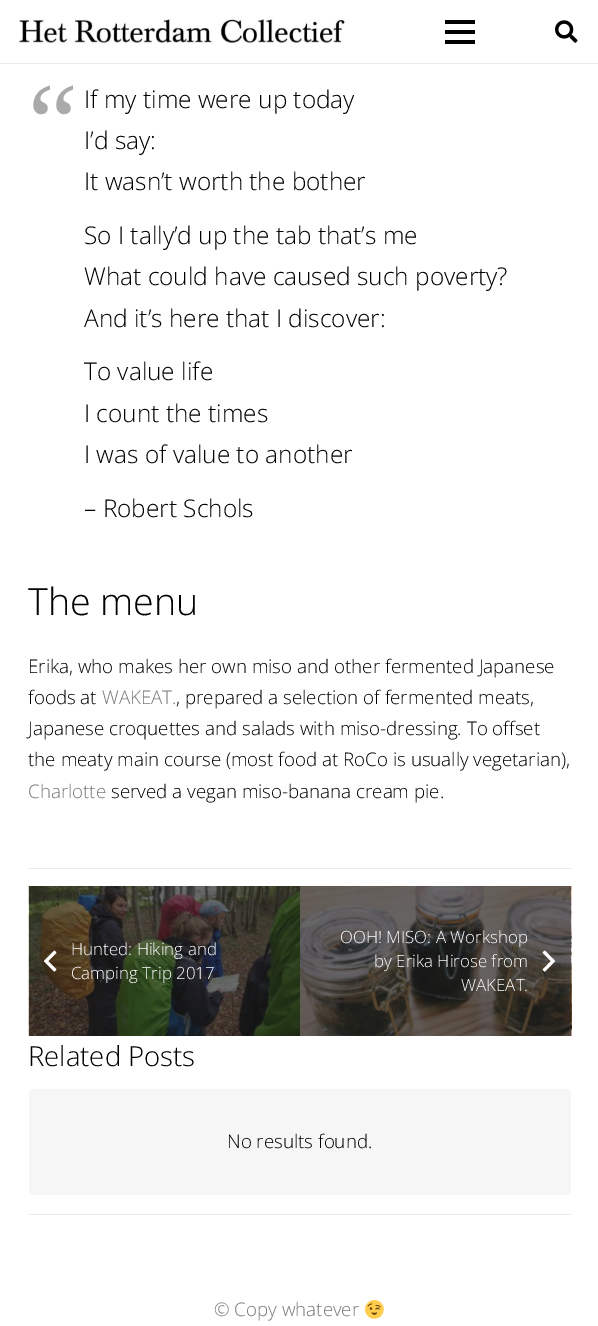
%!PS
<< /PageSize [598 1326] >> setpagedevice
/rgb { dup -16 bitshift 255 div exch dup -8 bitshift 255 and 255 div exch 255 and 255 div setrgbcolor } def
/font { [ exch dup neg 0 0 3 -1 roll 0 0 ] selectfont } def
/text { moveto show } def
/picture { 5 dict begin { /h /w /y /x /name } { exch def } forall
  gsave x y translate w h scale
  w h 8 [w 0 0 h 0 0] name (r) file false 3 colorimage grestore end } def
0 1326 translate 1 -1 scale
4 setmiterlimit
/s1 { /LiberationSerif-Regular 112 font 16#AAAAAA rgb } def
/s2 { /OpenSans-Light 24.4 font 16#000000 rgb } def
/s3 { /OpenSans-Light 37.5 font 16#000000 rgb } def
/s4 { /OpenSans-Light 18.75 font 16#000000 rgb } def
/s5 { /OpenSans-Light 18.75 font 16#777777 rgb } def
/s6 { /OpenSans-Light 16.9 font 16#FFFFFF rgb } def
/s7 { /OpenSans-Light 27.5 font 16#000000 rgb } def
16#FFFFFF rgb
0 0 598 1326 rectfill
16#EBEBEB rgb
0 62 moveto 0 64 lineto 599 64 lineto 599 1 lineto 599 62 lineto closepath fill
16#FFFFFF rgb
0 62 598 1 rectfill
(pic1.raw) 19 19 326 25 picture
16#000000 rgb
445 30 30 4 rectfill
445 20 30 4 rectfill
445 40 30 4 rectfill
(pic2.raw) 555 20 23 23 picture
s1
(“) 28 160 text
s2
(If my time were up today) 84 108 text
(I’d say:) 84 149 text
(It wasn’t worth the bother) 84 190 text
(So I tally’d up the tab that’s me) 84 244 text
(What could have caused such poverty?) 84 285 text
(And it’s here that I discover:) 84 327 text
(To value life) 84 380 text
(I count the times) 84 422 text
(I was of value to another) 84 463 text
(– Robert Schols) 84 517 text
s3
(The menu) 28 615 text
s4
(Erika, who makes her own miso and other fermented Japanese) 28 673 text
(foods at) 28 704 text
s5
(WAKEAT.) 102 704 text
s4
(, prepared a selection of fermented meats,) 176 704 text
(Japanese croquettes and salads with miso-dressing. To offset) 28 735 text
(the meaty main course \(most food at RoCo is usually vegetarian\),) 28 766 text
s5
(Charlotte) 28 798 text
s4
(served a vegan miso-banana cream pie.) 111 798 text
16#EBEBEB rgb
29 868 542 1 rectfill
(pic3.raw) 28 886 272 150 picture
(pic4.raw) 43 950 14 22 picture
s6
(Hunted: Hiking and) 71 955 text
(Camping Trip 2017) 71 979 text
(pic5.raw) 300 886 272 150 picture
(OOH! MISO: A Workshop) 340 943 text
(by Erika Hirose from) 374 967 text
(WAKEAT.) 461 991 text
(pic6.raw) 542 950 14 22 picture
s7
(Related Posts) 28 1066 text
16#F6F6F6 rgb
29 1089 542 106 rectfill
s4
(No results found.) 227 1148 text
16#EBEBEB rgb
29 1214 542 1 rectfill
s5
(© Copy whatever) 214 1316 text
(pic7.raw) 365 1300 19 19 picture
showpage
